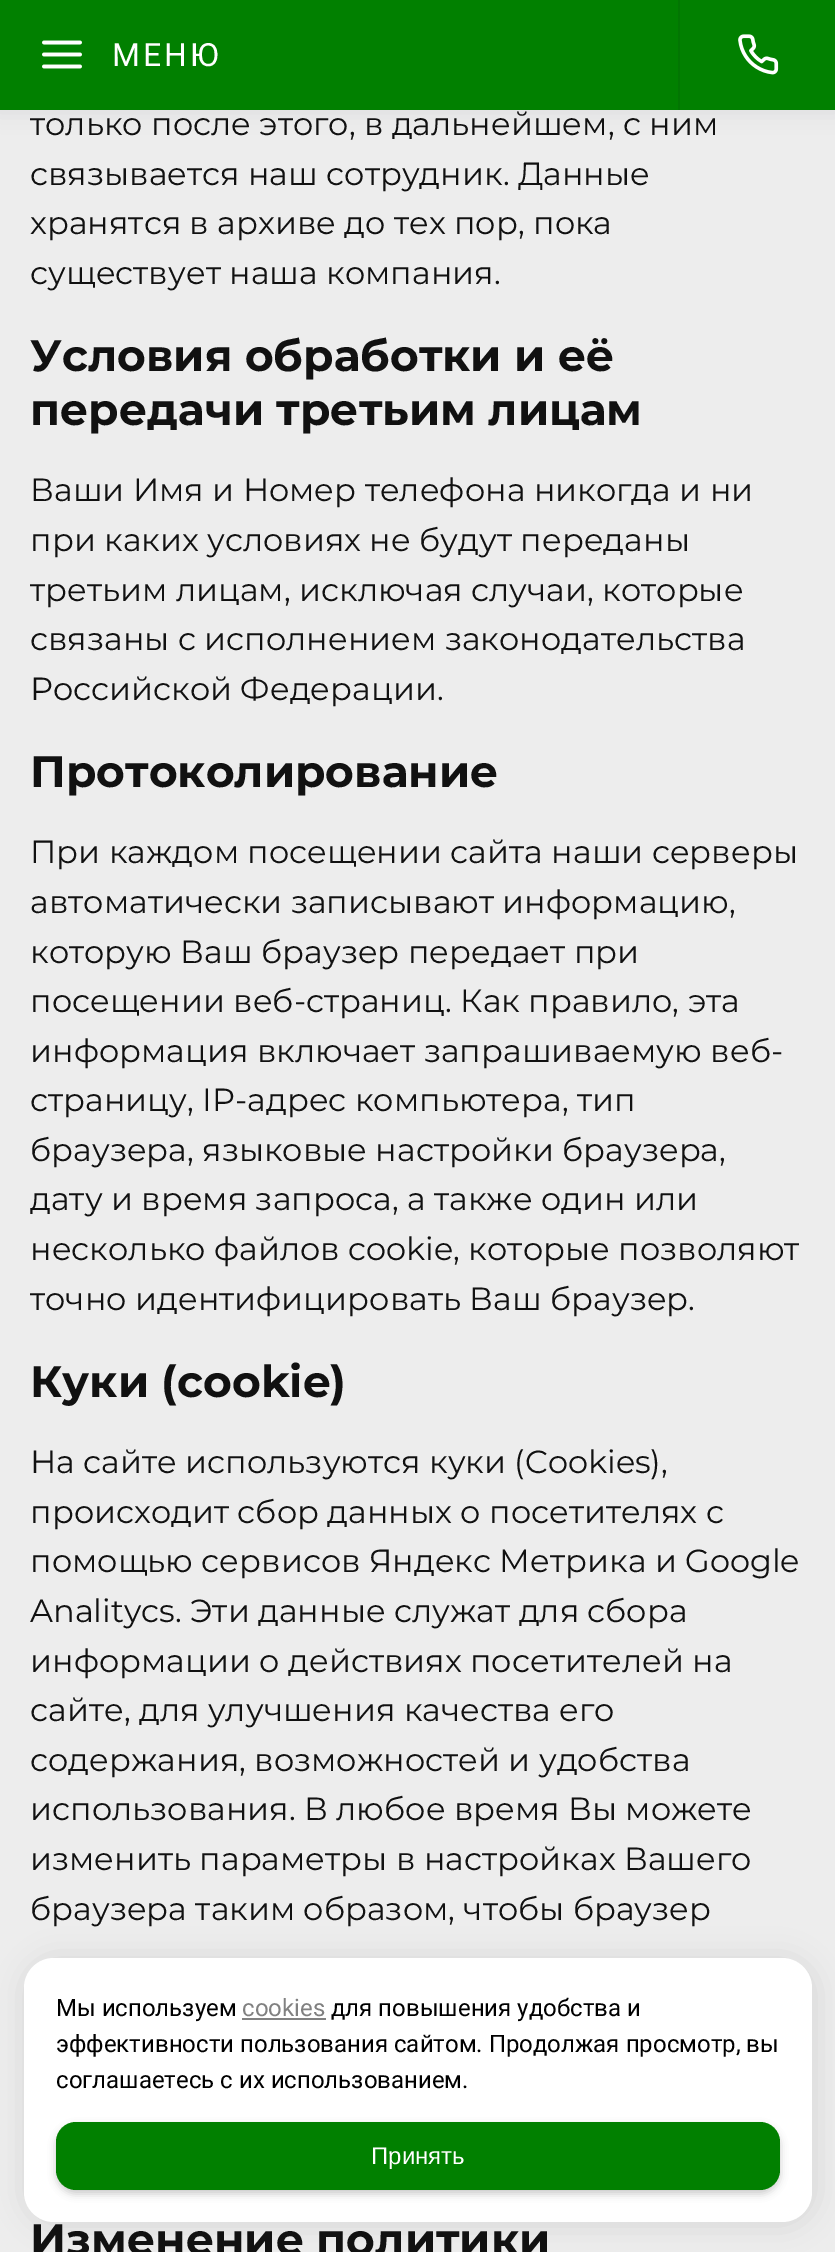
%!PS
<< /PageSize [835 2252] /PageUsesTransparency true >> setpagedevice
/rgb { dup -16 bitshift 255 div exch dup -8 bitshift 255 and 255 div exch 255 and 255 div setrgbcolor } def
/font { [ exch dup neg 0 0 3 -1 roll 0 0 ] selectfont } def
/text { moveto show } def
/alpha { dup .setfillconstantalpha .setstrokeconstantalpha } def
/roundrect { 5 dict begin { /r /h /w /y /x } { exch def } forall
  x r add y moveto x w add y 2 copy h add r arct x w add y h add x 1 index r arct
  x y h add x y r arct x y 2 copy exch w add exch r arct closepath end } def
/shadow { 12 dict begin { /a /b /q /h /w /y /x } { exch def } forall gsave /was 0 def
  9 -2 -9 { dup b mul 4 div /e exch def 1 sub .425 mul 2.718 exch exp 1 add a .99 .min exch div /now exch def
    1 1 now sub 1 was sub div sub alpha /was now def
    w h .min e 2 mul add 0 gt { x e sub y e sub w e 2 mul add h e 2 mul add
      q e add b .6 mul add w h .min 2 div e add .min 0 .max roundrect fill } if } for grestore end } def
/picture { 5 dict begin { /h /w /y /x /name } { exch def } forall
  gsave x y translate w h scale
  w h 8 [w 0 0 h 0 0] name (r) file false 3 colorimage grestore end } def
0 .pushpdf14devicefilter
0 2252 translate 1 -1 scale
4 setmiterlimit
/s1 { /Montserrat-Regular 32 font 16#111111 rgb } def
/s2 { /Montserrat-Bold 44 font 16#111111 rgb } def
/s3 { /Roboto-Regular 24 font 16#000000 rgb } def
/s4 { /Roboto-Regular 24 font 16#818181 rgb } def
/s5 { /LiberationSans-Regular 24 font 16#FFFFFF rgb } def
16#EDEDED rgb
0 0 835 2252 rectfill
16#100F1C rgb
-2 -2 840 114 0 10 0.07 shadow
16#018000 rgb
0 0 835 110 rectfill
(pic1.raw) 42 40 40 29 picture
/Roboto-Regular 32 font
16#FFFFFF rgb
112 66 moveto 3 0 (МЕНЮ) ashow
16#027602 rgb
678 0 2 110 rectfill
(pic2.raw) 738 34 41 41 picture
s1
(только после этого, в дальнейшем, с ним) 30 135 text
(связывается наш сотрудник. Данные) 30 185 text
(хранятся в архиве до тех пор, пока) 30 234 text
(существует наша компания.) 30 284 text
s2
(Условия обработки и её) 30 371 text
(передачи третьим лицам) 30 425 text
s1
(Ваши Имя и Номер телефона никогда и ни) 30 501 text
(при каких условиях не будут переданы) 30 551 text
(третьим лицам, исключая случаи, которые) 30 601 text
(связаны с исполнением законодательства) 30 650 text
(Российской Федерации.) 30 700 text
s2
(Протоколирование) 30 787 text
s1
(При каждом посещении сайта наши серверы) 30 863 text
(автоматически записывают информацию,) 30 913 text
(которую Ваш браузер передает при) 30 963 text
(посещении веб-страниц. Как правило, эта) 30 1012 text
(информация включает запрашиваемую веб-) 30 1062 text
(страницу, IP-адрес компьютера, тип) 30 1111 text
(браузера, языковые настройки браузера,) 30 1161 text
(дату и время запроса, а также один или) 30 1210 text
(несколько файлов cookie, которые позволяют) 30 1260 text
(точно идентифицировать Ваш браузер.) 30 1310 text
s2
(Куки \(cookie\)) 30 1397 text
s1
(На сайте используются куки \(Cookies\),) 30 1473 text
(происходит сбор данных о посетителях с) 30 1523 text
(помощью сервисов Яндекс Метрика и Google) 30 1572 text
(Analitycs. Эти данные служат для сбора) 30 1622 text
(информации о действиях посетителей на) 30 1672 text
(сайте, для улучшения качества его) 30 1721 text
(содержания, возможностей и удобства) 30 1771 text
(использования. В любое время Вы можете) 30 1820 text
(изменить параметры в настройках Вашего) 30 1870 text
(браузера таким образом, чтобы браузер) 30 1920 text
s2
(Изменение политики) 30 2255 text
16#000000 rgb
26 1960 788 264 30 15 0.1 shadow
16#FFFFFF rgb
24 1958 788 264 30 roundrect fill
s3
(Мы используем) 56 2016 text
s4
(cookies) 242 2016 text
242 2018 84 2 rectfill
s3
(для повышения удобства и) 331 2016 text
(эффективности пользования сайтом. Продолжая просмотр, вы) 56 2052 text
(соглашаетесь с их использованием.) 56 2088 text
56 2126 724 68 20 4 0.2 shadow
16#018000 rgb
56 2122 724 68 20 roundrect fill
s5
(Принять) 371 2164 text
.poppdf14devicefilter showpage
